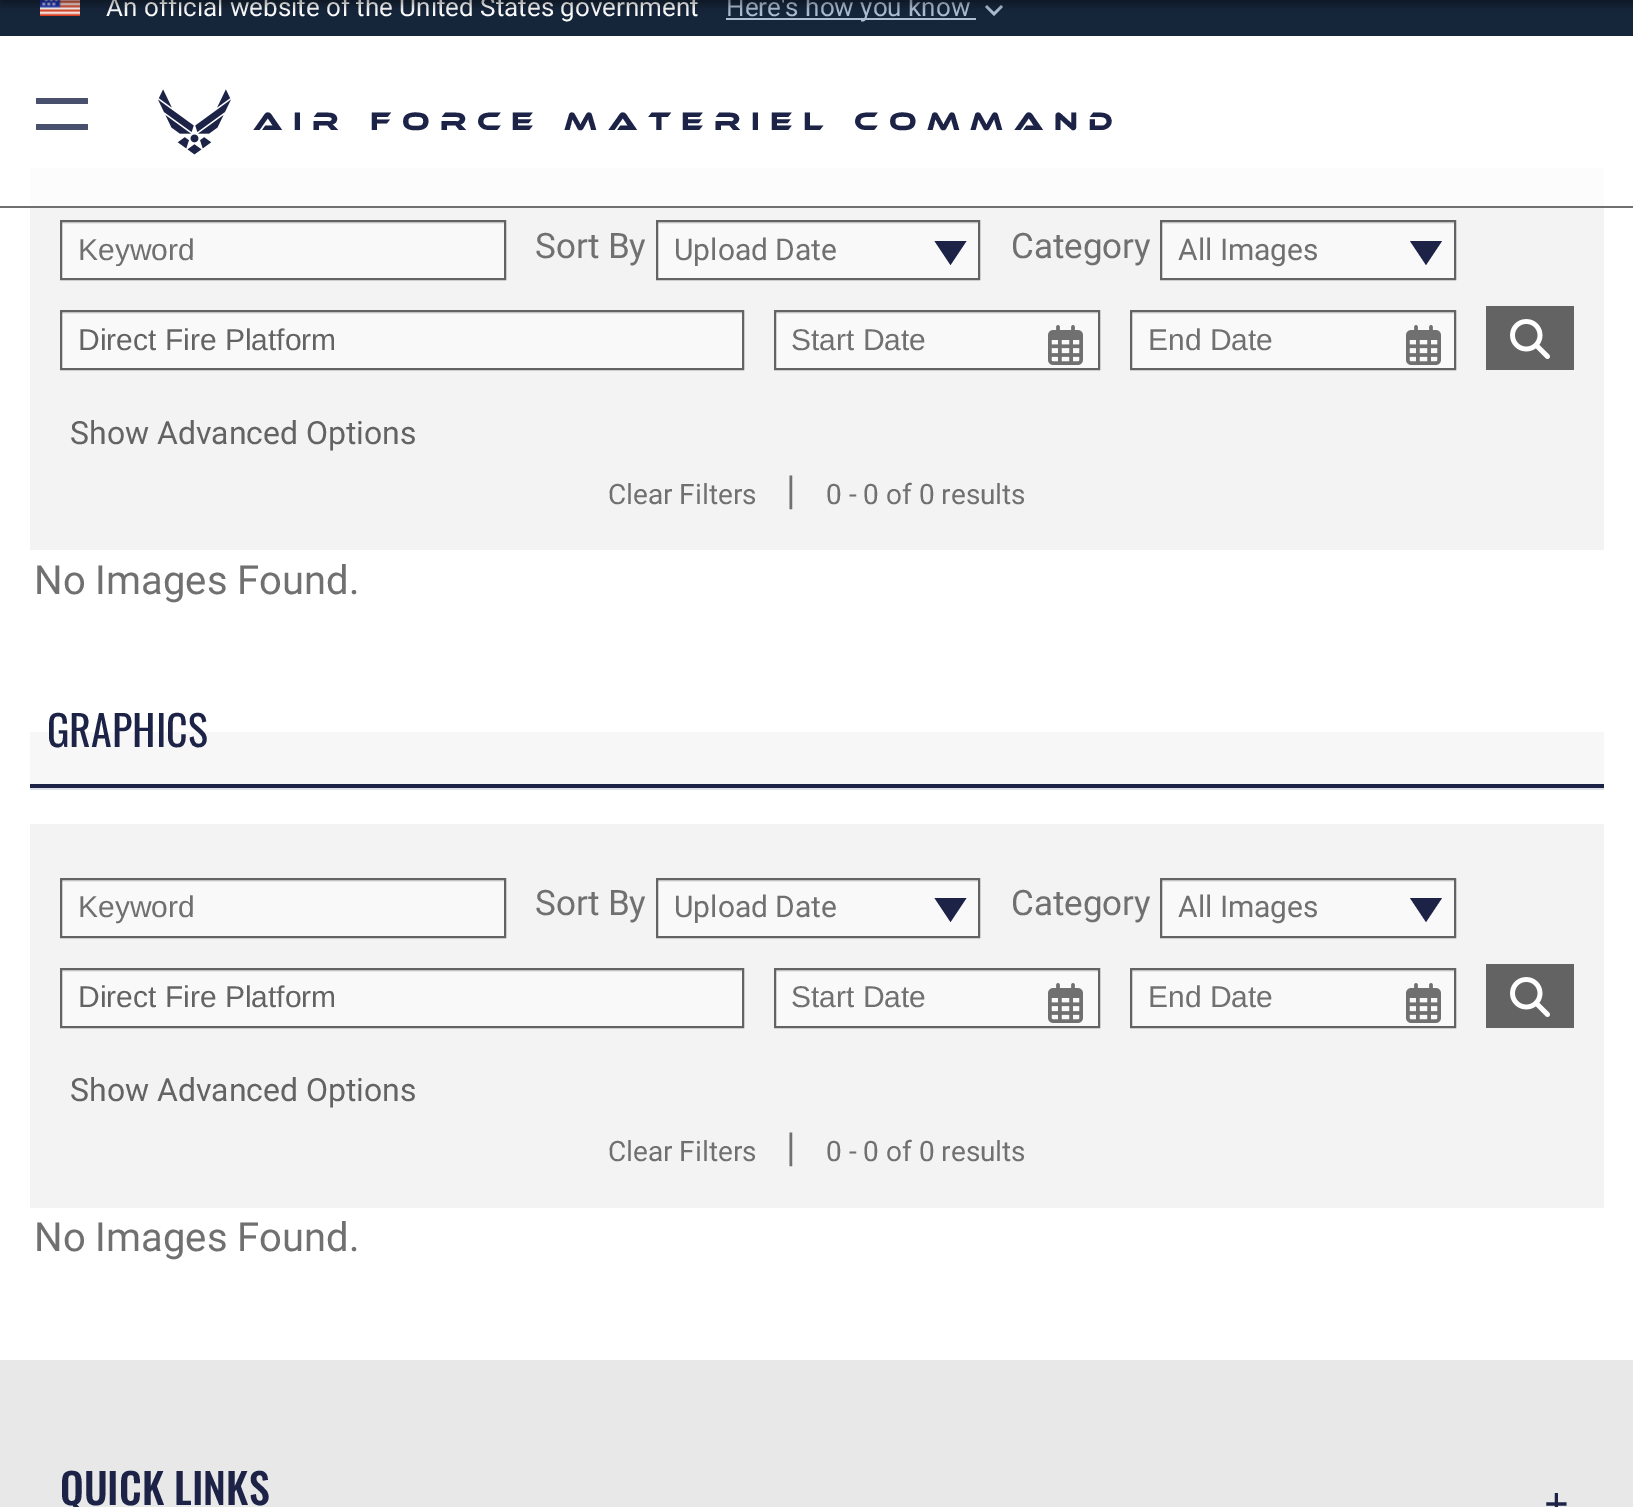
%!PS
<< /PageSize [1633 1507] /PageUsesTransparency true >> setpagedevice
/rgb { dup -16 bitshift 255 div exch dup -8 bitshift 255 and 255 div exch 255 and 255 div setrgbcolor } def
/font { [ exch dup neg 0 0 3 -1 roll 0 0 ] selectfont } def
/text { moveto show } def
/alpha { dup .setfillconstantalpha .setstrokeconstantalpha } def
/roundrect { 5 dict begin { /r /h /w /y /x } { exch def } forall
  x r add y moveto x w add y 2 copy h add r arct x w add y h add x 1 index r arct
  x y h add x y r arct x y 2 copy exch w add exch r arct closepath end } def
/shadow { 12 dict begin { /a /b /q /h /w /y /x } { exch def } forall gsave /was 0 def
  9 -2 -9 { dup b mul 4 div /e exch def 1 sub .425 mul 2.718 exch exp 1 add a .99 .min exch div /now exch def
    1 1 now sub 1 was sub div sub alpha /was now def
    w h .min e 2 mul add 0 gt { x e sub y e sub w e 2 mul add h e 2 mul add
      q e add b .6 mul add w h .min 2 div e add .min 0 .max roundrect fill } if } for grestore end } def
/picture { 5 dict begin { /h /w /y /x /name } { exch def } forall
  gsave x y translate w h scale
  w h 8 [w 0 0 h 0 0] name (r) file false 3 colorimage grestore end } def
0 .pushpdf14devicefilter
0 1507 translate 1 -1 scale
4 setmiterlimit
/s1 { /Roboto-Regular 26 font 16#FFFFFF rgb } def
/s2 { /Roboto-Regular 26 font 16#AEBFD4 rgb } def
/s3 { /LiberationSans-Regular 30 font 16#707070 rgb } def
/s4 { /Roboto-Regular 35 font 16#707070 rgb } def
/s5 { /Roboto-Regular 30 font 16#707070 rgb } def
/s6 { /LiberationSans-Regular 30 font 16#636363 rgb } def
/s7 { /Roboto-Regular 32 font 16#636363 rgb } def
/s8 { /Roboto-Regular 28 font 16#707070 rgb } def
/s9 { /Roboto-Regular 40 font 16#707070 rgb } def
/s10 { /Oswald-Regular 42 font 16#1C2347 rgb } def
/s11 { /Oswald-Medium 42 font 16#1C2347 rgb } def
/s12 { /Oswald-Light 60 font 16#1C2347 rgb } def
16#FFFFFF rgb
0 0 1633 1507 rectfill
16#15263B rgb
0 0 1633 36 rectfill
(pic1.raw) 40 0 40 16 picture
s1
(An official website of the United States government) 106 16 text
16#AEBFD4 rgb
726 18 250 2 rectfill
(Here's how you know) 726 16 text
1001 5 moveto 994 12 lineto 987 5 lineto 985 7 lineto 994 16 lineto 1003 7 lineto closepath fill
16#000000 rgb
0 -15 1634 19 0 5 0.45 shadow
16#707070 rgb
0 206 1633 2 rectfill
16#49506D rgb
36 98 52 6 1 roundrect fill
36 124 52 6 1 roundrect fill
(pic2.raw) 158 89 73 66 picture
/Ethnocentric-Regular 26 font
16#1C2347 rgb
253 130 moveto 10.5 0 (Air Force Materiel Command) ashow
16#F3F3F3 rgb
30 208 1574 342 rectfill
16#FCFCFC rgb
30 168 1574 38 rectfill
16#F9F9F9 rgb
62 224 442 54 rectfill
16#E6E6E6 rgb
62 222 442 2 rectfill
16#636363 rgb
2 setlinewidth
61 221 444 58 rectstroke
gsave
78 232 410 34 rectclip
s3
(Keyword) 78 260 text
grestore
s4
(Sort By) 535 258 text
16#F9F9F9 rgb
658 224 320 54 rectfill
16#E6E6E6 rgb
658 222 320 2 rectfill
16#636363 rgb
657 221 322 58 rectstroke
s5
(Upload Date) 674 260 text
16#1C2347 rgb
934.5 241 moveto 966.5 241 lineto 950.5 265 lineto closepath fill
s4
(Category) 1011 258 text
16#F9F9F9 rgb
1162 224 292 54 rectfill
16#E6E6E6 rgb
1162 222 292 2 rectfill
16#636363 rgb
1161 221 294 58 rectstroke
s5
(All Images) 1178 260 text
16#1C2347 rgb
1410 241 moveto 1442 241 lineto 1426 265 lineto closepath fill
16#F9F9F9 rgb
62 314 680 54 rectfill
16#E6E6E6 rgb
62 312 680 2 rectfill
16#636363 rgb
61 311 682 58 rectstroke
s6
(Direct Fire Platform) 78 350 text
16#F9F9F9 rgb
776 314 322 54 rectfill
16#E6E6E6 rgb
776 312 322 2 rectfill
16#636363 rgb
775 311 324 58 rectstroke
s3
(Start Date) 791 350 text
(pic3.raw) 1048 325 35 40 picture
16#F9F9F9 rgb
1132 314 322 54 rectfill
16#E6E6E6 rgb
1132 312 322 2 rectfill
16#636363 rgb
1131 311 324 58 rectstroke
s3
(End Date) 1148 350 text
(pic3.raw) 1406 325 35 40 picture
16#636363 rgb
1486 306 88 64 rectfill
(pic4.raw) 1510 319 40 40 picture
s7
(Show Advanced Options) 70 444 text
s8
(Clear Filters) 608 504 text
s9
(|) 786 504 text
s8
(0 - 0 of 0 results) 826 504 text
s9
(No Images Found.) 34 594 text
gsave 30 732 moveto 1604 732 lineto 1604 784 lineto 30 784 lineto closepath clip newpath
<< /ShadingType 2 /ColorSpace /DeviceRGB /Coords [817 702 817 788] /Extend [true true] /Function << /FunctionType 3 /Domain [0 1] /Functions [<< /FunctionType 2 /Domain [0 1] /C0 [1 1 1] /C1 [1 1 1] /N 1 >> << /FunctionType 2 /Domain [0 1] /C0 [0.969 0.969 0.969] /C1 [0.969 0.969 0.969] /N 1 >>] /Bounds [0.35] /Encode [0 1 0 1] >> >> shfill grestore
16#DEE2E6 rgb
30 788 1574 2 rectfill
s10
(GRAPHICS) 47 747 text
30 784 1574 4 rectfill
16#F3F3F3 rgb
30 824 1574 384 rectfill
16#F9F9F9 rgb
62 882 442 54 rectfill
16#E6E6E6 rgb
62 880 442 2 rectfill
16#636363 rgb
61 879 444 58 rectstroke
s3
(Keyword) 78 917 text
s4
(Sort By) 535 915 text
16#F9F9F9 rgb
658 882 320 54 rectfill
16#E6E6E6 rgb
658 880 320 2 rectfill
16#636363 rgb
657 879 322 58 rectstroke
s5
(Upload Date) 674 917 text
16#1C2347 rgb
934.5 898 moveto 966.5 898 lineto 950.5 922 lineto closepath fill
s4
(Category) 1011 915 text
16#F9F9F9 rgb
1162 882 292 54 rectfill
16#E6E6E6 rgb
1162 880 292 2 rectfill
16#636363 rgb
1161 879 294 58 rectstroke
s5
(All Images) 1178 917 text
16#1C2347 rgb
1410 898 moveto 1442 898 lineto 1426 922 lineto closepath fill
16#F9F9F9 rgb
62 972 680 54 rectfill
16#E6E6E6 rgb
62 970 680 2 rectfill
16#636363 rgb
61 969 682 58 rectstroke
s6
(Direct Fire Platform) 78 1007 text
16#F9F9F9 rgb
776 972 322 54 rectfill
16#E6E6E6 rgb
776 970 322 2 rectfill
16#636363 rgb
775 969 324 58 rectstroke
s3
(Start Date) 791 1007 text
(pic3.raw) 1048 983 35 40 picture
16#F9F9F9 rgb
1132 972 322 54 rectfill
16#E6E6E6 rgb
1132 970 322 2 rectfill
16#636363 rgb
1131 969 324 58 rectstroke
s3
(End Date) 1148 1007 text
(pic3.raw) 1406 983 35 40 picture
16#636363 rgb
1486 964 88 64 rectfill
(pic4.raw) 1510 977 40 40 picture
s7
(Show Advanced Options) 70 1101 text
s8
(Clear Filters) 608 1161 text
s9
(|) 786 1161 text
s8
(0 - 0 of 0 results) 826 1161 text
s9
(No Images Found.) 34 1251 text
16#E8E8E8 rgb
0 1360 1633 147 rectfill
s11
(QUICK LINKS) 60 1505 text
s12
(+) 1545 1529 text
.poppdf14devicefilter showpage
